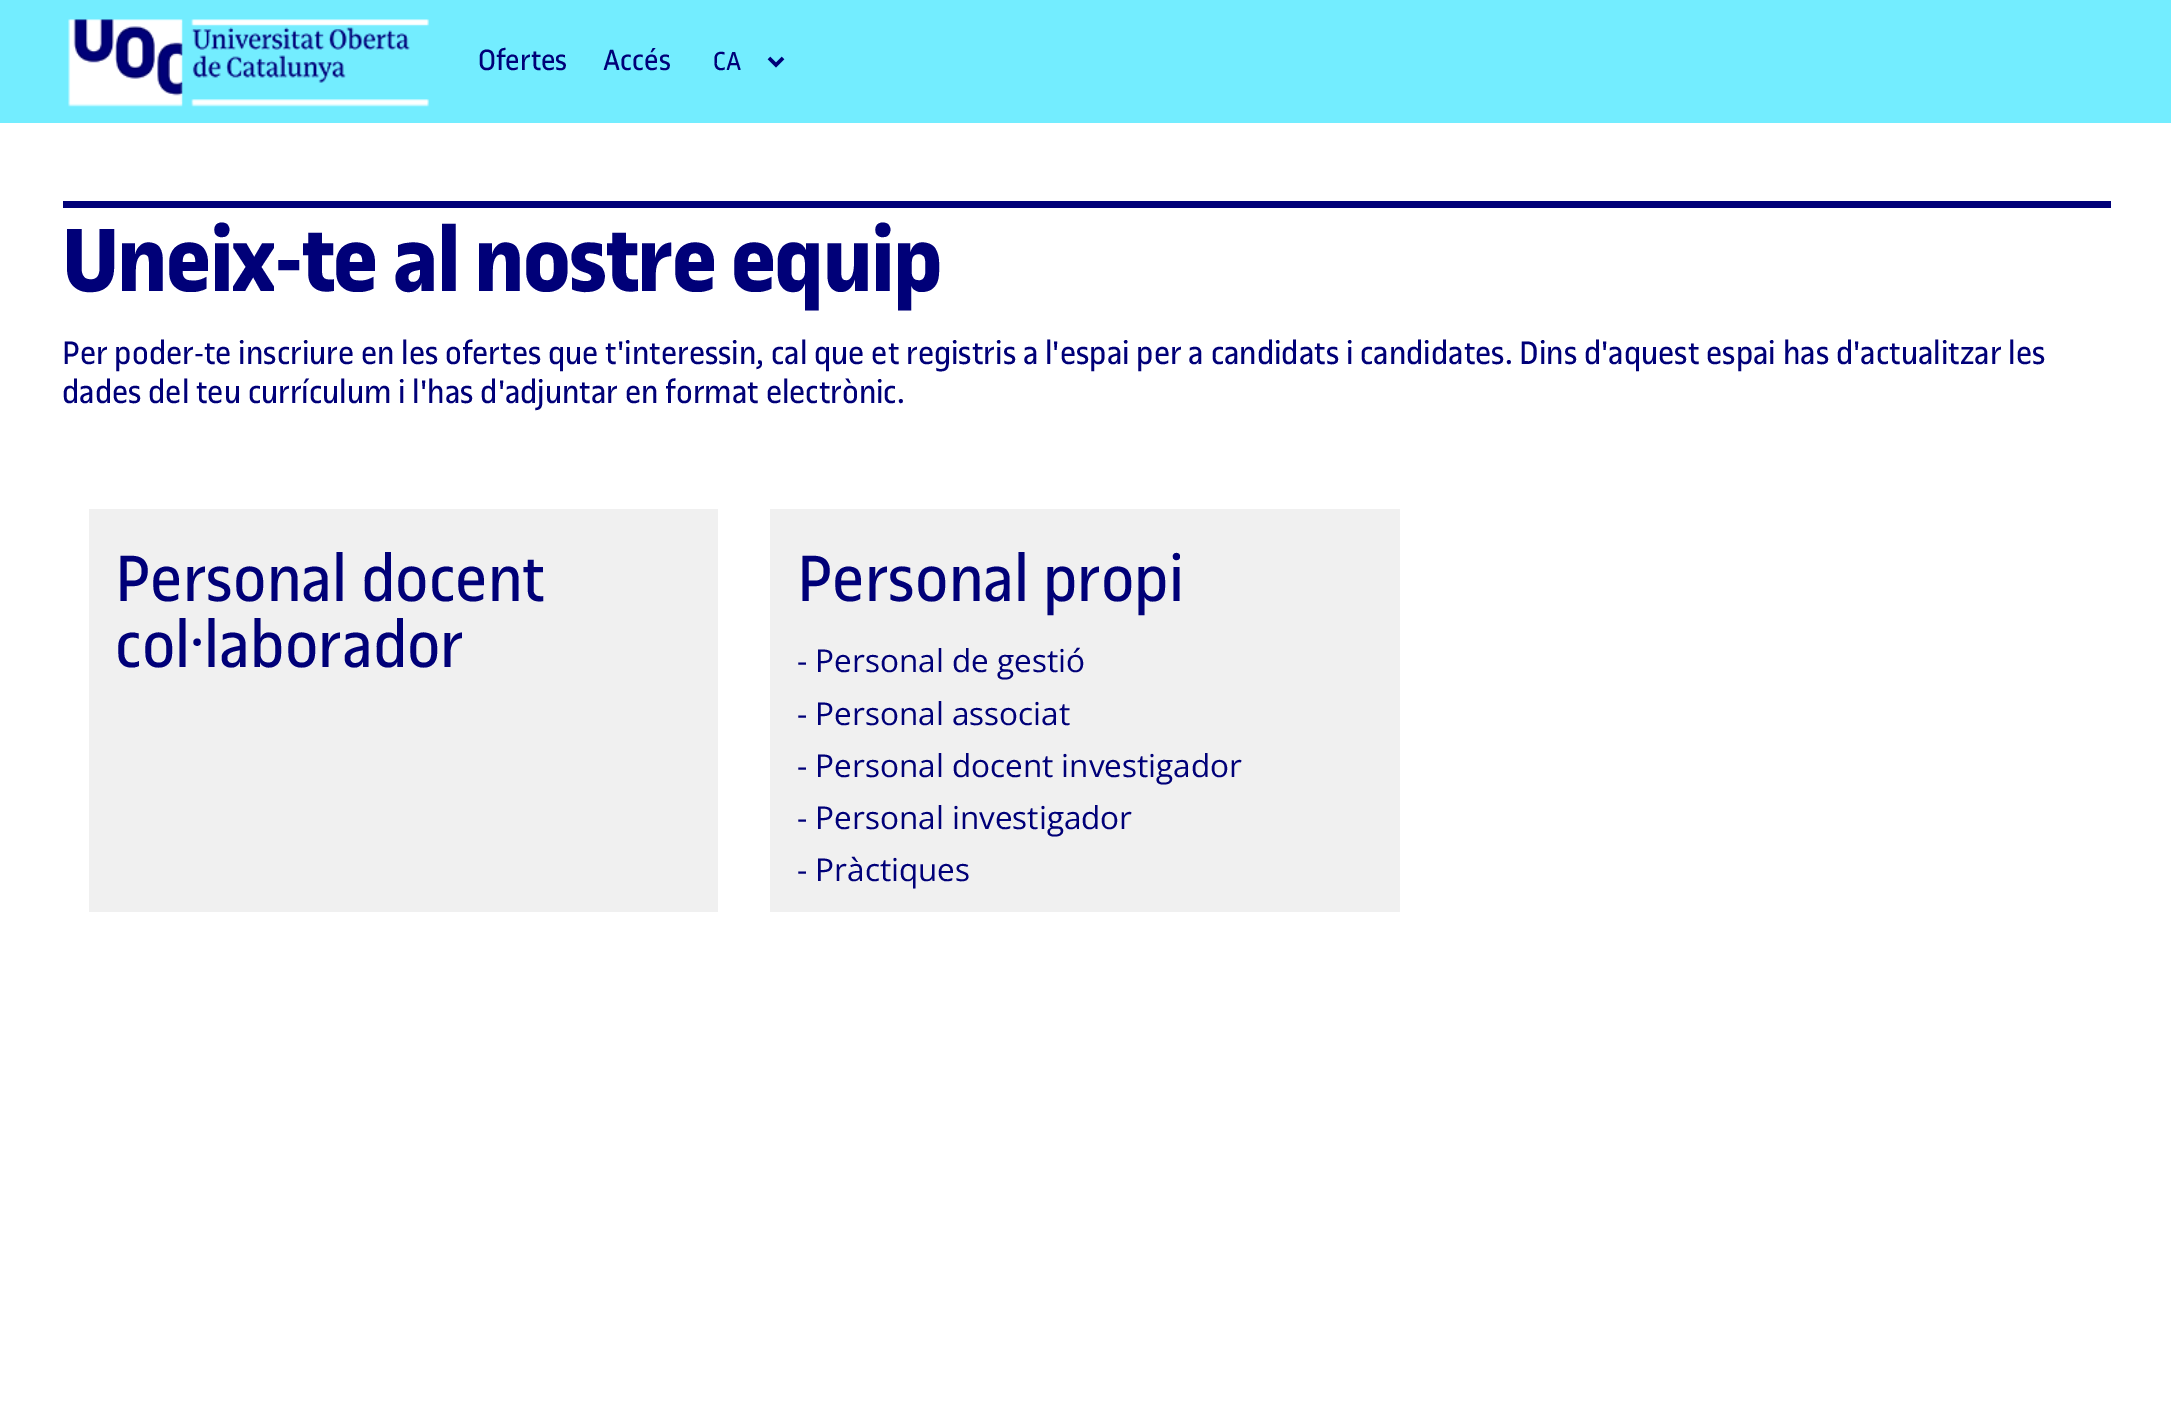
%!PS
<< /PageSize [2171 1415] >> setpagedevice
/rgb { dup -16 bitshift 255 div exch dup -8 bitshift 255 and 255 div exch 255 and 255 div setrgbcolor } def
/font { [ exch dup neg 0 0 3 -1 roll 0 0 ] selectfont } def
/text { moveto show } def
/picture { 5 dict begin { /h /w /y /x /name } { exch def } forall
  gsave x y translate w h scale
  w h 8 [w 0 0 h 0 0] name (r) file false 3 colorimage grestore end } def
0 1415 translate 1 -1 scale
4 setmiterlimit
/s1 { /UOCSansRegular-Regular 31.5 font 16#000078 rgb } def
/s2 { /UOCSansRegular-Regular 28 font 16#000078 rgb } def
/s3 { /UOCSansRegular-Regular 35 font 16#000078 rgb } def
/s4 { /UOCSansRegular-Regular 70 font 16#000078 rgb } def
/s5 { /OpenSans-Regular 31.5 font 16#000078 rgb } def
16#FFFFFF rgb
0 0 2171 1415 rectfill
16#73EDFF rgb
0 0 2171 123 rectfill
(pic1.raw) 68 19 361 88 picture
s1
(Ofertes) 478 70 text
(Accés) 603 70 text
3.5 setlinewidth
769 58 moveto 776 65 lineto 783 58 lineto stroke
s2
(CA) 713 70 text
63 201 2048 7 rectfill
/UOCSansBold-Bold 96.25 font
62 291 moveto -1.75 0 (Uneix-te al nostre equip) ashow
s3
(Per poder-te inscriure en les ofertes que t'interessin, cal que et registris a l'espai per a candidats i candidates. Dins d'aquest espai has d'actualitzar les) 62 364 text
(dades del teu currículum i l'has d'adjuntar en format electrònic.) 62 403 text
16#F0F0F0 rgb
89 509 629 403 rectfill
s4
(Personal docent) 115 601 text
(col·laborador) 115 667 text
16#F0F0F0 rgb
770 509 630 403 rectfill
s4
(Personal propi) 797 601 text
s5
(- Personal de gestió) 797 672 text
(- Personal associat) 797 725 text
(- Personal docent investigador) 797 777 text
(- Personal investigador) 797 829 text
(- Pràctiques) 797 881 text
showpage
